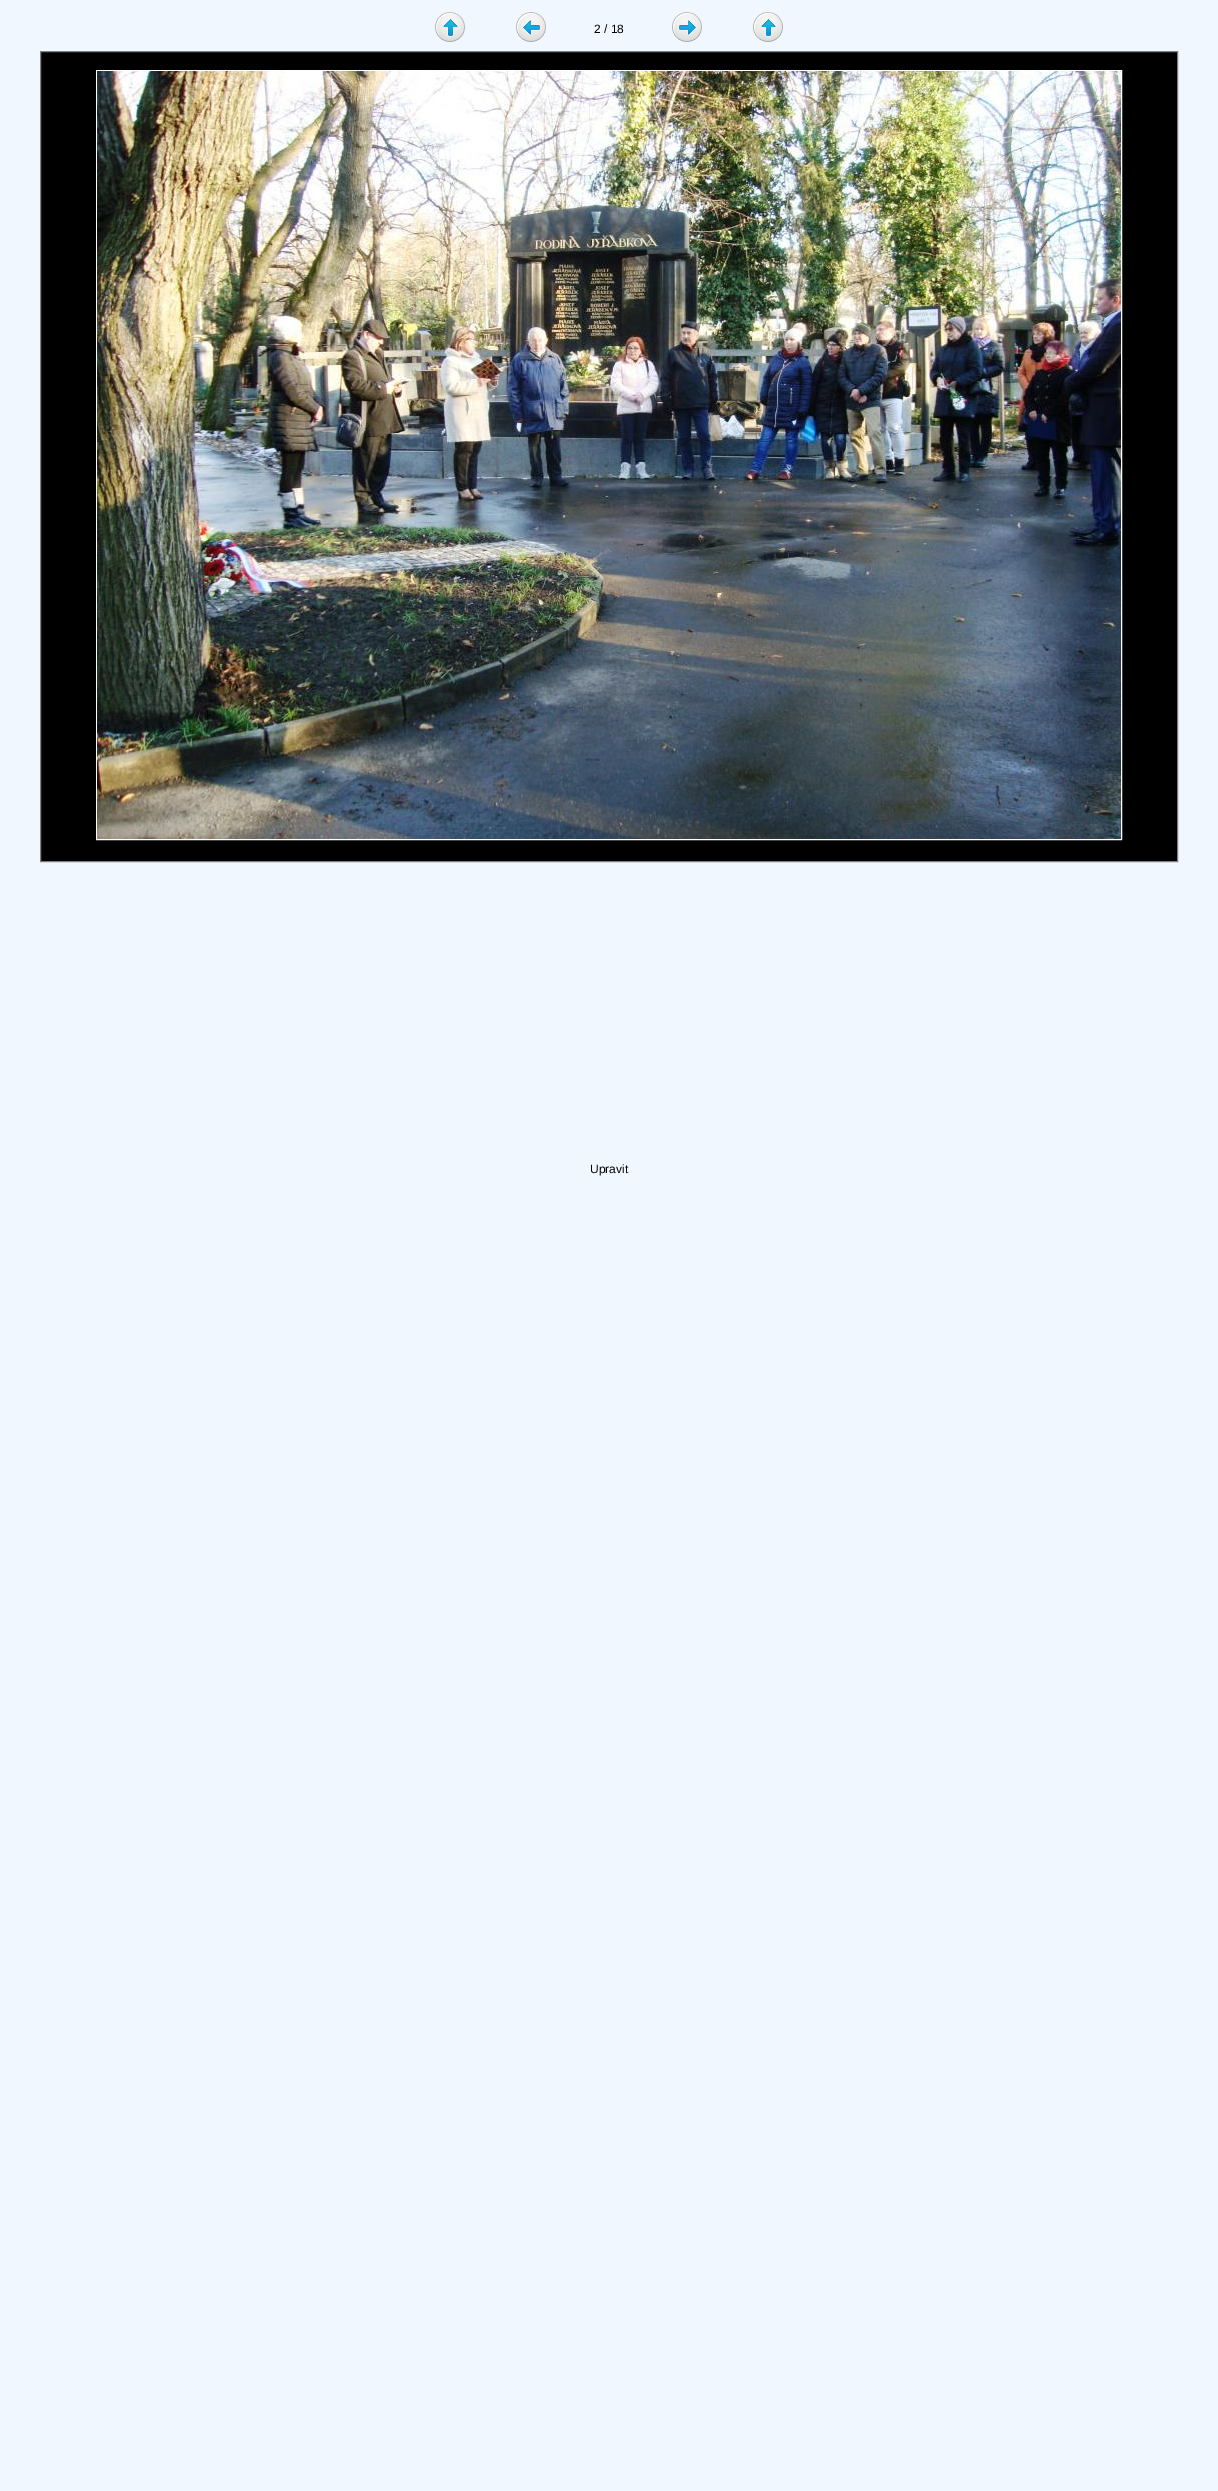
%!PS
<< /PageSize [1218 2491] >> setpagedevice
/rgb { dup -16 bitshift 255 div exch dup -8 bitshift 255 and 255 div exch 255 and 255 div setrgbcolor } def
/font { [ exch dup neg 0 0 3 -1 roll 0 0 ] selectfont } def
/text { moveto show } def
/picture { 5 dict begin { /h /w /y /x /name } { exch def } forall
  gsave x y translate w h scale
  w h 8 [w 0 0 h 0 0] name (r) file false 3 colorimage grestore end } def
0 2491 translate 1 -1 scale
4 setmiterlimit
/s1 { /LiberationSans-Regular 12 font 16#000000 rgb } def
16#F0F7FF rgb
0 0 1218 2491 rectfill
(pic1.raw) 435 12 30 30 picture
(pic2.raw) 516 12 30 30 picture
s1
(2 / 18) 594 33 text
(pic3.raw) 672 12 30 30 picture
(pic1.raw) 753 12 30 30 picture
40.5 51.5 moveto 1177.5 51.5 lineto 1177.5 861.5 lineto 40.5 861.5 lineto closepath gsave fill grestore
16#808080 rgb
stroke
16#FFFFFF rgb
96.5 70.5 1025 769 rectstroke
(pic4.raw) 97 71 1024 768 picture
s1
(Upravit) 590 1173 text
showpage
